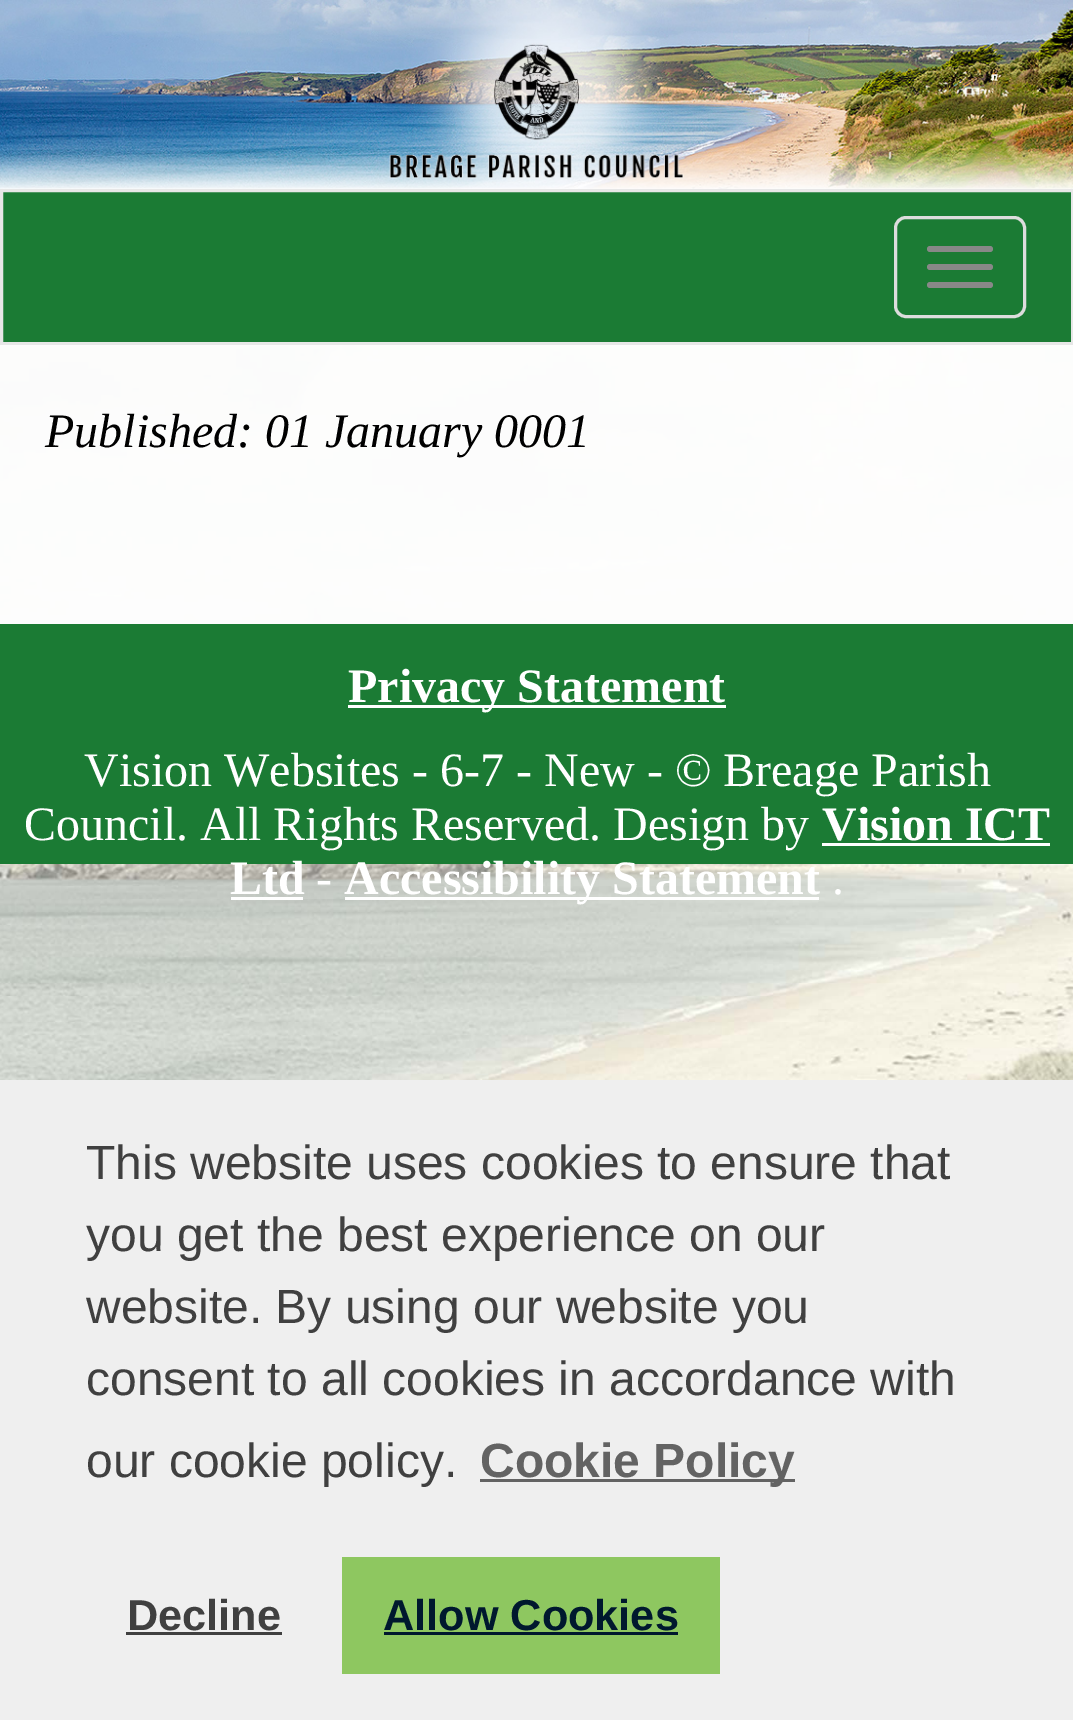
%!PS
<< /PageSize [1073 1720] /PageUsesTransparency true >> setpagedevice
/rgb { dup -16 bitshift 255 div exch dup -8 bitshift 255 and 255 div exch 255 and 255 div setrgbcolor } def
/font { [ exch dup neg 0 0 3 -1 roll 0 0 ] selectfont } def
/text { moveto show } def
/alpha { dup .setfillconstantalpha .setstrokeconstantalpha } def
/roundrect { 5 dict begin { /r /h /w /y /x } { exch def } forall
  x r add y moveto x w add y 2 copy h add r arct x w add y h add x 1 index r arct
  x y h add x y r arct x y 2 copy exch w add exch r arct closepath end } def
/picture { 5 dict begin { /h /w /y /x /name } { exch def } forall
  gsave x y translate w h scale
  w h 8 [w 0 0 h 0 0] name (r) file false 3 colorimage grestore end } def
0 .pushpdf14devicefilter
0 1720 translate 1 -1 scale
4 setmiterlimit
/s1 { /LiberationSerif-Italic 48 font 16#000000 rgb } def
/s2 { /LiberationSerif-Bold 48 font 16#FFFFFF rgb } def
/s3 { /LiberationSerif-Regular 48 font 16#FFFFFF rgb } def
/s4 { /LiberationSans-Regular 48 font 16#404040 rgb } def
/s5 { /LiberationSans-Bold 48 font 16#636363 rgb } def
/s6 { /LiberationSans-Bold 43.25 font 16#404040 rgb } def
/s7 { /LiberationSans-Bold 43.25 font 16#00182E rgb } def
16#FFFFFF rgb
0 0 1073 1720 rectfill
(pic1.raw) 0 345 1073 735 picture
(pic2.raw) 0 0 1073 189 picture
16#1B7B34 rgb
1.5 190.5 moveto 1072.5 190.5 lineto 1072.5 343.5 lineto 1.5 343.5 lineto closepath gsave fill grestore
16#E7E7E7 rgb
3 setlinewidth
stroke
16#DDDDDD rgb
895.5 217.5 129 99 10.5 roundrect stroke
16#888888 rgb
927 246 66 6 3 roundrect fill
927 264 66 6 3 roundrect fill
927 282 66 6 3 roundrect fill
0.9 alpha
16#FFFFFF rgb
0 345 1073 279 rectfill
1 alpha
s1
(Published: 01 January 0001) 45 447 text
16#1B7B34 rgb
0 624 1073 240 rectfill
16#FFFFFF rgb
348 705 378 3 rectfill
s2
(Privacy Statement) 348 702 text
s3
(Vision Websites - 6-7 - New - © Breage Parish) 84 786 text
(Council. All Rights Reserved. Design by) 24 840 text
s2
(Vision ICT) 822 840 text
822 843 228 3 rectfill
(Ltd) 230 894 text
231 897 72 3 rectfill
s3
(-) 316 894 text
345 897 474 3 rectfill
s2
(Accessibility Statement) 344 894 text
s3
(.) 832 894 text
16#EFEFEF rgb
0 1080 1073 640 rectfill
s4
(This website uses cookies to ensure that) 86 1179 text
(you get the best experience on our) 86 1251 text
(website. By using our website you) 86 1323 text
(consent to all cookies in accordance with) 86 1395 text
(our cookie policy.) 86 1477 text
16#636363 rgb
480 1479 315 3 rectfill
s5
(Cookie Policy) 480 1477 text
s6
(Decline) 127 1630 text
126 1632 156 3 rectfill
16#8EC760 rgb
342 1557 378 117 rectfill
s7
(Allow Cookies) 383 1630 text
384 1632 294 3 rectfill
.poppdf14devicefilter showpage
